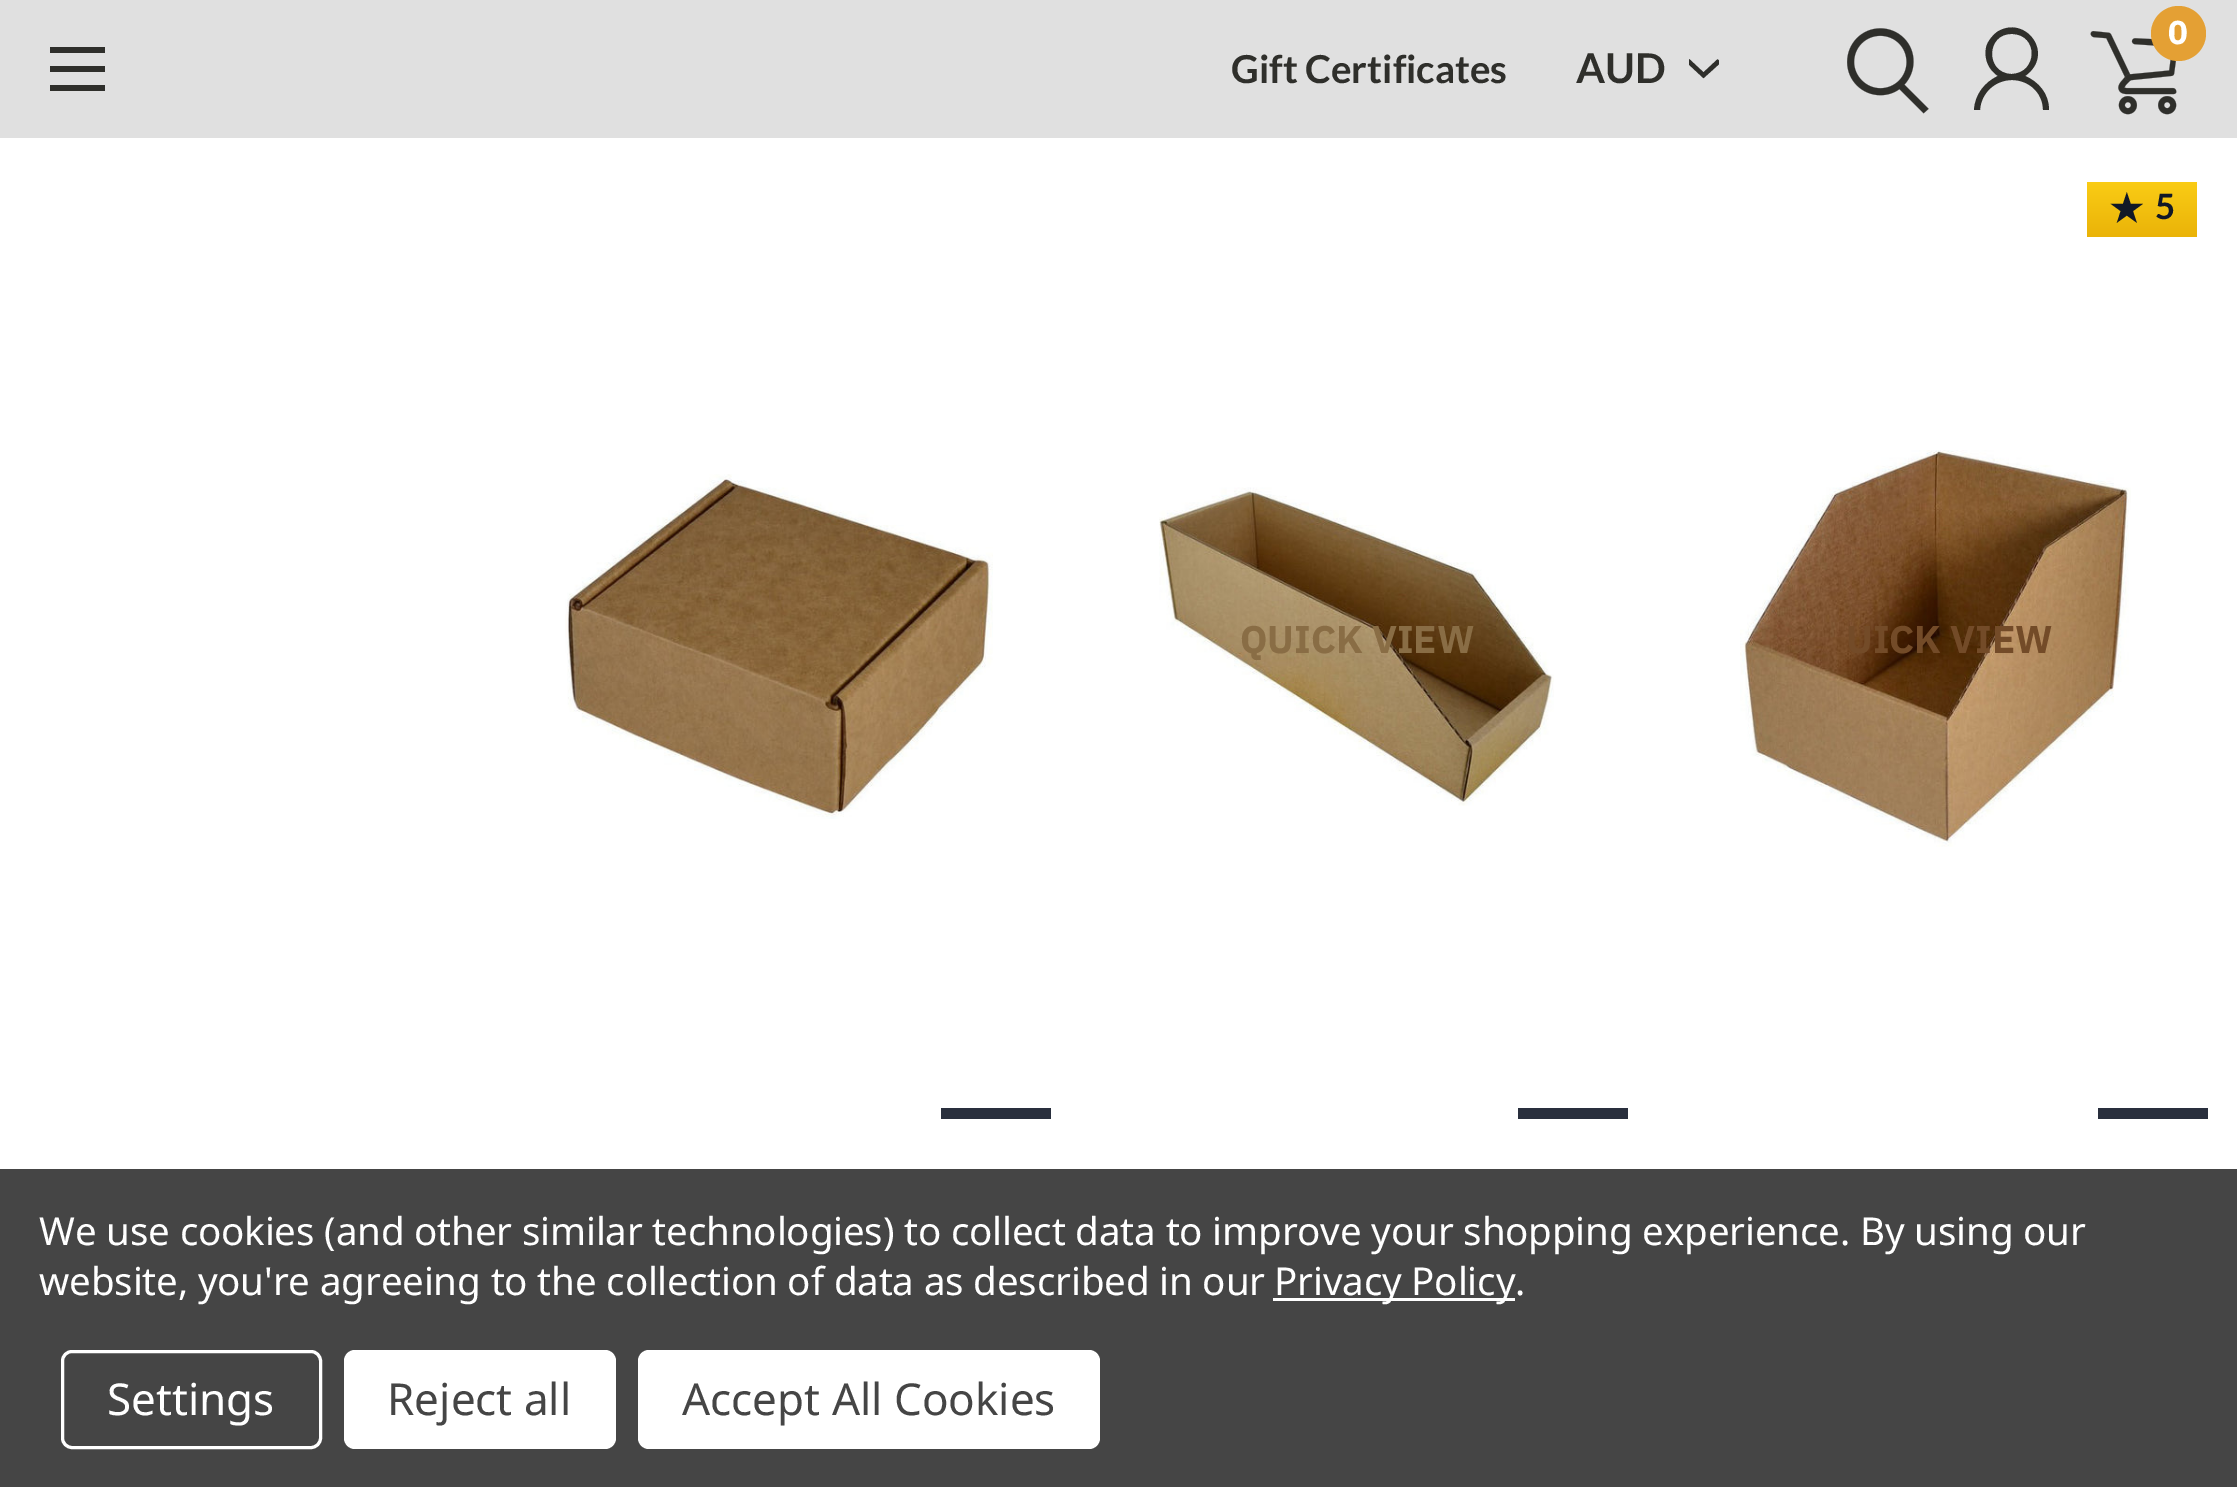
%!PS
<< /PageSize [2237 1487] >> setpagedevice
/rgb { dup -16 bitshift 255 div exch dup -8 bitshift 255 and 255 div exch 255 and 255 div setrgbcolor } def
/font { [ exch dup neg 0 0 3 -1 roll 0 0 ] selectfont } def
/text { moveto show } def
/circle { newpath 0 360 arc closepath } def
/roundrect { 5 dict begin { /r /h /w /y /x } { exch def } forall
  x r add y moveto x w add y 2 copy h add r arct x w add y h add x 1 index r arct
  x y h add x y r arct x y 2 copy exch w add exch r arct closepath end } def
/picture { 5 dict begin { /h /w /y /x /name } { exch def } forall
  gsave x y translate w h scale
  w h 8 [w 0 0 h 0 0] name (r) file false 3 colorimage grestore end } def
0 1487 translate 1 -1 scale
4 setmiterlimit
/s1 { /IBMPlexSans-Bold 33 font 16#FFFFFF rgb } def
/s2 { /Lato-Bold 38.5 font 16#2F2F2B rgb } def
/s3 { /Lato-Bold 41 font 16#2F2F2B rgb } def
/s4 { /DejaVuSans-Bold 38.5 font 16#111827 rgb } def
/s5 { /Lato-Bold 35 font 16#111827 rgb } def
/s6 { /IBMPlexSans-Bold 38.5 font 16#734B28 rgb } def
/s7 { /IBMPlexSans-Bold 38.5 font 16#896D45 rgb } def
/s8 { /NotoSans-Regular 44 font 16#FFFFFF rgb } def
/s9 { /NotoSans-Regular 44 font 16#454545 rgb } def
16#FFFFFF rgb
0 0 2237 1487 rectfill
16#E0E0E0 rgb
0 0 2237 138 rectfill
(pic1.raw) 1847 28 82 86 picture
16#2F2F2B rgb
2043 110 moveto 2043 93 2029 80 2012 80 curveto 1995 80 1981 93 1980 110 curveto 1974 110 lineto 1975 94 1985 82 1998 76 curveto 1989 70 1984 60 1986 48 curveto 1987 42 1992 36 1997 32 curveto 2025 14 2056 54 2025 76 curveto 2039 82 2049 94 2049 110 curveto closepath 2012 34 moveto 1986 33 1985 73 2011 74 curveto 2038 74 2039 34 2012 34 curveto closepath fill
(pic2.raw) 2090 31 87 84 picture
16#E4A034 rgb
2178.5 33.5 27.5 circle fill
s1
(0) 2168 44 text
16#2F2F2B rgb
50 66 55 6 rectfill
50 47 55 6 rectfill
50 85 55 6 rectfill
s2
(Gift Certificates) 1231 83 text
s3
(AUD) 1576 83 text
gsave
1689 58 30 22 rectclip
2.5 setlinewidth
2 setlinecap
1703.5 74 moveto 1717.5 61 lineto 1719 62.5 lineto 1703.5 76.5 lineto 1688.5 62.5 lineto 1689.5 61 lineto closepath stroke
grestore
gsave 2087 182 moveto 2197 182 lineto 2197 237 lineto 2087 237 lineto closepath clip newpath
<< /ShadingType 2 /ColorSpace /DeviceRGB /Coords [2142 182 2142 237] /Extend [true true] /Function << /FunctionType 2 /Domain [0 1] /C0 [0.98 0.8 0.082] /C1 [0.918 0.702 0.031] /N 1 >> >> shfill grestore
s4
(★) 2109 222 text
s5
(5) 2155 219 text
(pic3.raw) 1740 450 391 397 picture
s6
(UICK VIEW) 1846 653 text
16#292F3D rgb
2098 1108 110 11 rectfill
(pic4.raw) 565 474 428 345 picture
941 1108 110 11 rectfill
(pic5.raw) 1159 487 395 319 picture
s7
(QUICK VIEW) 1240 653 text
16#292F3D rgb
1518 1108 110 11 rectfill
16#454545 rgb
0 1169 2237 318 rectfill
/NotoSans-Regular 38.5 font
16#FFFFFF rgb
39 1245 moveto -0.14 0 (We use cookies \(and other similar technologies\) to collect data to improve your shopping experience. By using our) ashow
39 1295 moveto -0.14 0 (website, you're agreeing to the collection of data as described in our) ashow
1273 1298 242 3 rectfill
1274 1295 moveto -0.14 0 (Privacy Policy.) ashow
3 setlinewidth
62.5 1351.5 258 96 9.5 roundrect stroke
s8
(Settings) 107 1415 text
344 1350 272 99 11 roundrect fill
s9
(Reject all) 387 1415 text
16#FFFFFF rgb
638 1350 462 99 11 roundrect fill
s9
(Accept All Cookies) 682 1415 text
showpage
